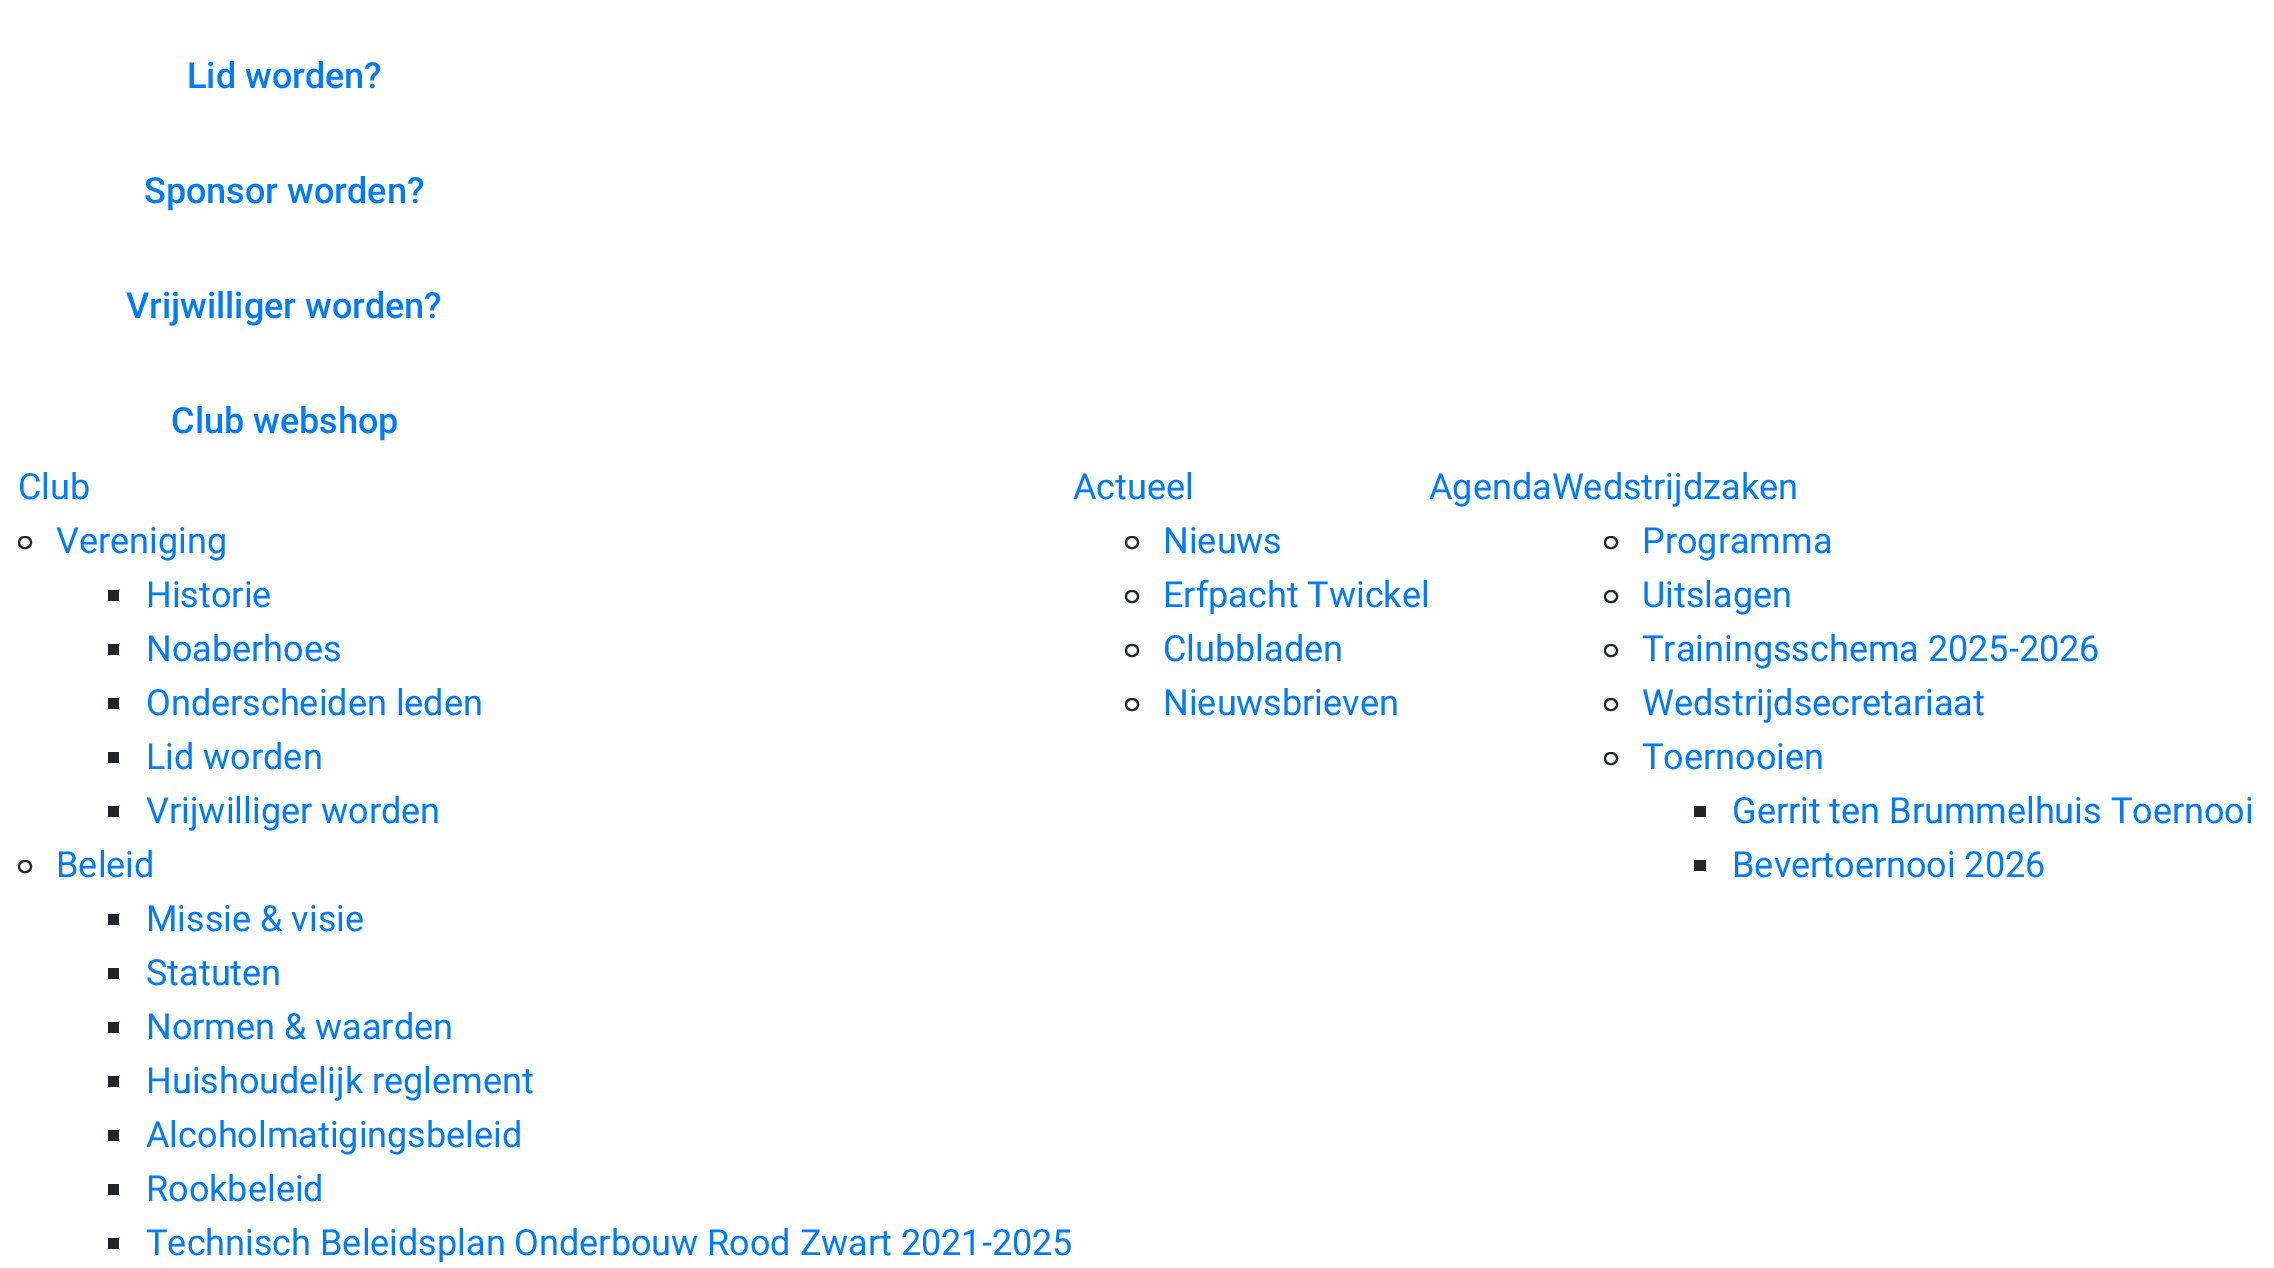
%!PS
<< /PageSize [2274 1268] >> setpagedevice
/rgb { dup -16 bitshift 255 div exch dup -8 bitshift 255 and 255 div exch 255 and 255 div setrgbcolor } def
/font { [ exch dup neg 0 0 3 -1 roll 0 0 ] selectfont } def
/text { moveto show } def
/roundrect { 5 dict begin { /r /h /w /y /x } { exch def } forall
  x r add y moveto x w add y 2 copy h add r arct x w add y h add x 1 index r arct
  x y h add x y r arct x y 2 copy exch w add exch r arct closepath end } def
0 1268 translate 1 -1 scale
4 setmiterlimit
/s1 { /Roboto-Medium 36 font 16#007BFF rgb } def
/s2 { /Roboto-Regular 36 font 16#007BFF rgb } def
16#FFFFFF rgb
0 0 2274 1268 rectfill
s1
(Lid worden?) 187 88 text
(Sponsor worden?) 144 203 text
(Vrijwilliger worden?) 126 318 text
(Club webshop) 171 433 text
s2
(Club) 18 499 text
16#212529 rgb
2 setlinewidth
19 537 12 11 5.5 roundrect stroke
s2
(Vereniging) 56 553 text
16#212529 rgb
108 590 11 11 rectfill
s2
(Historie) 146 607 text
16#212529 rgb
108 644 11 11 rectfill
s2
(Noaberhoes) 146 661 text
16#212529 rgb
108 698 11 11 rectfill
s2
(Onderscheiden leden) 146 715 text
16#212529 rgb
108 752 11 11 rectfill
s2
(Lid worden) 146 769 text
16#212529 rgb
108 806 11 11 rectfill
s2
(Vrijwilliger worden) 146 823 text
16#212529 rgb
19 861 12 11 5.5 roundrect stroke
s2
(Beleid) 56 877 text
16#212529 rgb
108 914 11 11 rectfill
s2
(Missie & visie) 146 931 text
16#212529 rgb
108 968 11 11 rectfill
s2
(Statuten) 146 985 text
16#212529 rgb
108 1022 11 11 rectfill
s2
(Normen & waarden) 146 1039 text
16#212529 rgb
108 1076 11 11 rectfill
s2
(Huishoudelijk reglement) 146 1093 text
16#212529 rgb
108 1130 11 11 rectfill
s2
(Alcoholmatigingsbeleid) 146 1147 text
16#212529 rgb
108 1184 11 11 rectfill
s2
(Rookbeleid) 146 1201 text
16#212529 rgb
108 1238 11 11 rectfill
s2
(Technisch Beleidsplan Onderbouw Rood Zwart 2021-2025) 146 1255 text
(Actueel) 1073 499 text
16#212529 rgb
1126 537 12 11 5.5 roundrect stroke
s2
(Nieuws) 1163 553 text
16#212529 rgb
1126 591 12 11 5.5 roundrect stroke
s2
(Erfpacht Twickel) 1163 607 text
16#212529 rgb
1126 645 12 11 5.5 roundrect stroke
s2
(Clubbladen) 1163 661 text
16#212529 rgb
1126 699 12 11 5.5 roundrect stroke
s2
(Nieuwsbrieven) 1163 715 text
(AgendaWedstrijdzaken) 1429 499 text
16#212529 rgb
1605 537 12 11 5.5 roundrect stroke
s2
(Programma) 1642 553 text
16#212529 rgb
1605 591 12 11 5.5 roundrect stroke
s2
(Uitslagen) 1642 607 text
16#212529 rgb
1605 645 12 11 5.5 roundrect stroke
s2
(Trainingsschema 2025-2026) 1642 661 text
16#212529 rgb
1605 699 12 11 5.5 roundrect stroke
s2
(Wedstrijdsecretariaat) 1642 715 text
16#212529 rgb
1605 753 12 11 5.5 roundrect stroke
s2
(Toernooien) 1642 769 text
16#212529 rgb
1694 806 12 11 rectfill
s2
(Gerrit ten Brummelhuis Toernooi) 1732 823 text
16#212529 rgb
1694 860 12 11 rectfill
s2
(Bevertoernooi 2026) 1732 877 text
showpage
